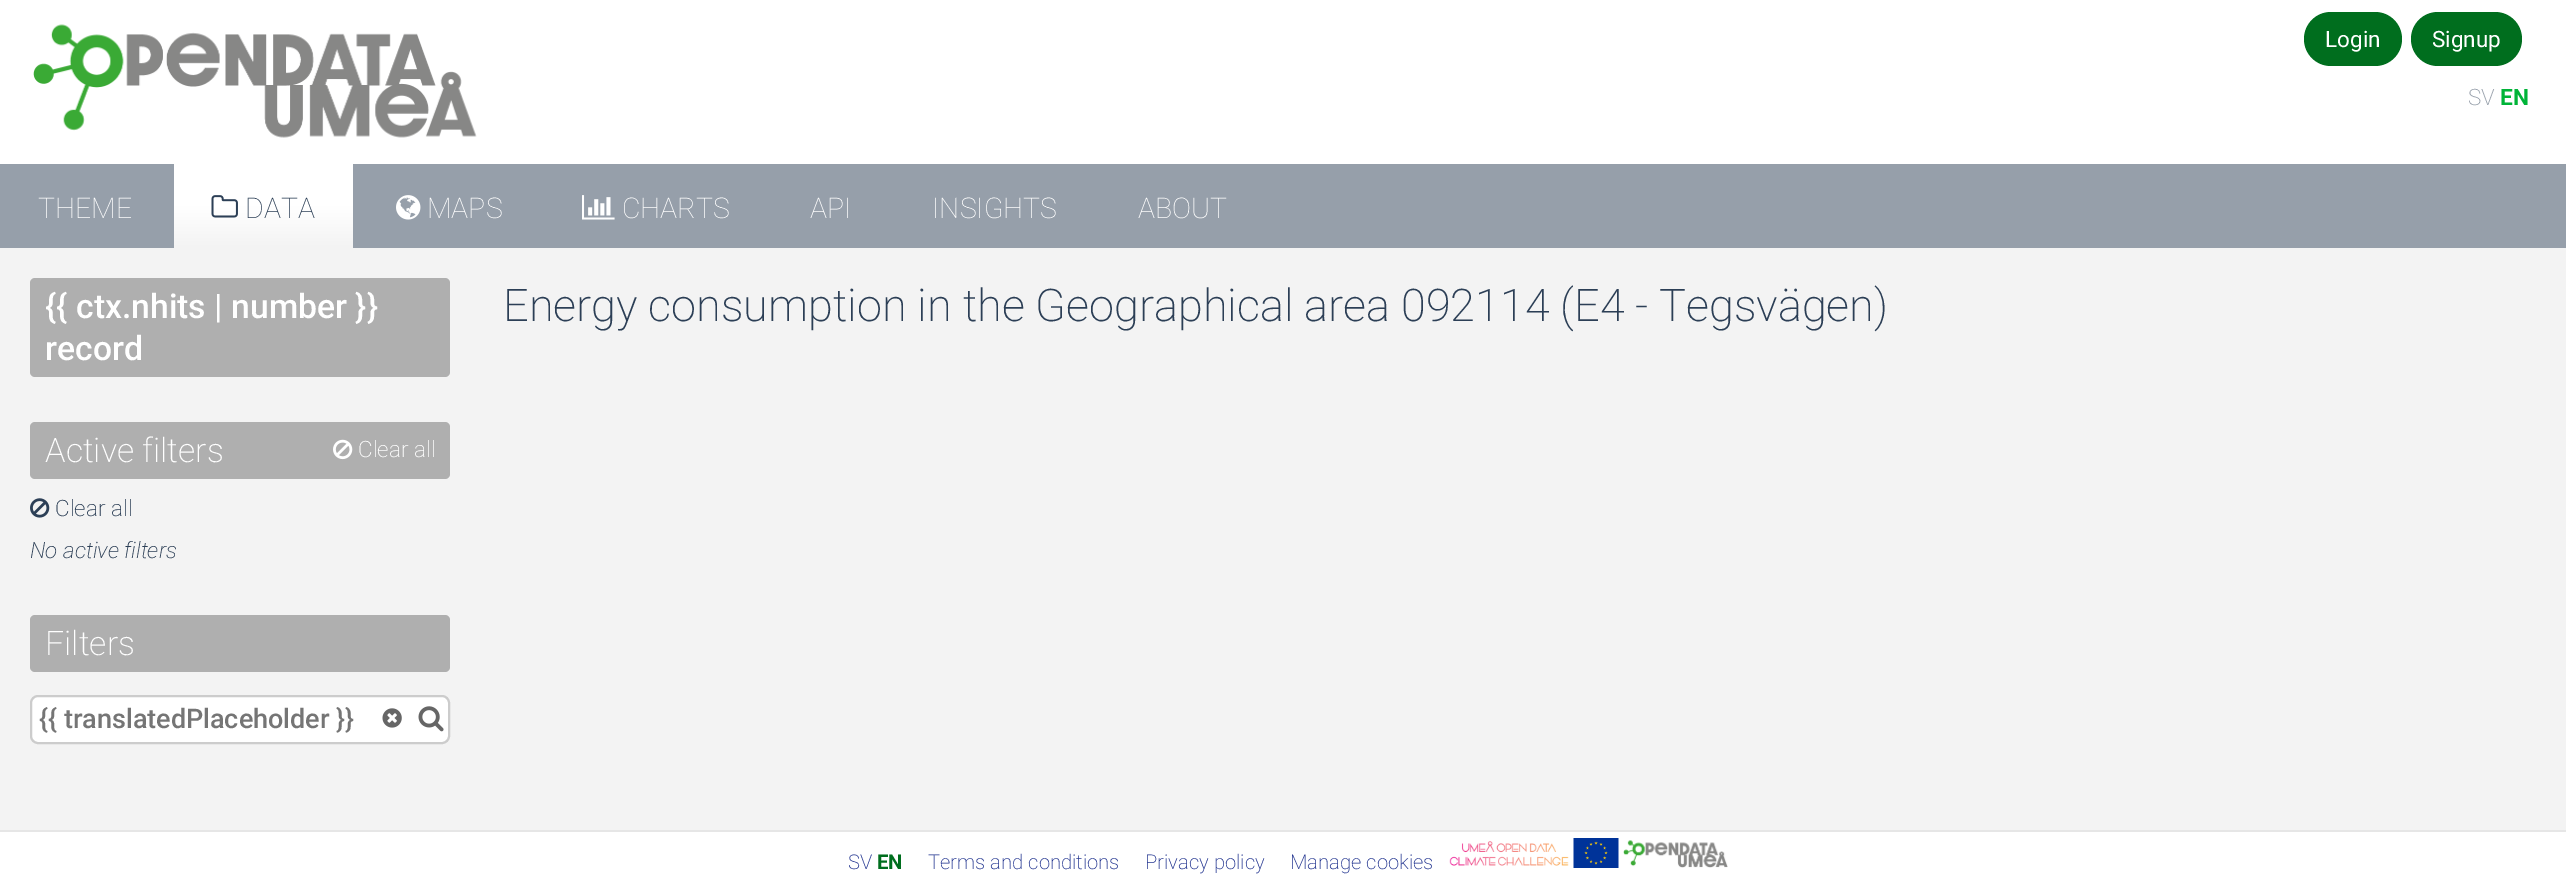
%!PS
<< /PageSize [2566 890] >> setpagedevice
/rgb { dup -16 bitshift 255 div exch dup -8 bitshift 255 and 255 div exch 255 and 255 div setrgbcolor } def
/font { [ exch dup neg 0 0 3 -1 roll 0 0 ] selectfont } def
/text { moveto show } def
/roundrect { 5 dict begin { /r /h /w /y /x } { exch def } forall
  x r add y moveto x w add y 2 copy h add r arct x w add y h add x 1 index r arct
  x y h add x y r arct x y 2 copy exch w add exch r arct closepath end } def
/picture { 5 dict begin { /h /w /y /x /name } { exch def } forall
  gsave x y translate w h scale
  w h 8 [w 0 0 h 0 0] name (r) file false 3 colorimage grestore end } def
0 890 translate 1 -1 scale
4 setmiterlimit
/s1 { /Roboto-Regular 22.5 font 16#FFFFFF rgb } def
/s2 { /Roboto-ExtraLight 22.5 font 16#969FAA rgb } def
/s3 { /Roboto-Bold 22.5 font 16#00B438 rgb } def
/s4 { /Roboto-Thin 28.5 font 16#FFFFFF rgb } def
/s5 { /Roboto-Thin 28.5 font 16#2C3F56 rgb } def
/s6 { /Roboto-Medium 33.75 font 16#FFFFFF rgb } def
/s7 { /Roboto-ExtraLight 33.75 font 16#FFFFFF rgb } def
/s8 { /Roboto-ExtraLight 22.5 font 16#FFFFFF rgb } def
/s9 { /Roboto-ExtraLight 22.5 font 16#2C3F56 rgb } def
/s10 { /Roboto-ExtraLightItalic 22.5 font 16#2C3F56 rgb } def
/s11 { /Roboto-Medium 27 font 16#757575 rgb } def
/s12 { /Roboto-ExtraLight 45 font 16#2C3F56 rgb } def
/s13 { /Roboto-ExtraLight 20.25 font 16#263892 rgb } def
/s14 { /Roboto-Bold 20.25 font 16#006E1E rgb } def
16#F3F3F3 rgb
0 0 2566 890 rectfill
16#FFFFFF rgb
0 0 2566 164 rectfill
(pic1.raw) 33 24 444 114 picture
16#006E1E rgb
2304 12 98 54 27 roundrect fill
s1
(Login) 2325 47 text
16#006E1E rgb
2411 12 111 54 27 roundrect fill
s1
(Signup) 2432 47 text
s2
(SV) 2468 105 text
s3
(EN) 2500 105 text
16#969FAA rgb
0 164 2566 84 rectfill
s4
(THEME) 38 218 text
gsave 174 164 moveto 353 164 lineto 353 248 lineto 174 248 lineto closepath clip newpath
<< /ShadingType 2 /ColorSpace /DeviceRGB /Coords [263 248 263 164] /Extend [true true] /Function << /FunctionType 3 /Domain [0 1] /Functions [<< /FunctionType 2 /Domain [0 1] /C0 [0.953 0.953 0.953] /C1 [1 1 1] /N 1 >> << /FunctionType 2 /Domain [0 1] /C0 [1 1 1] /C1 [1 1 1] /N 1 >>] /Bounds [0.5] /Encode [0 1 0 1] >> >> shfill grestore
(pic2.raw) 211 195 27 23 picture
s5
(DATA) 245 218 text
(pic3.raw) 396 195 25 25 picture
s4
(MAPS) 427 218 text
(pic4.raw) 582 195 33 25 picture
(CHARTS) 622 218 text
(API) 810 218 text
(INSIGHTS) 932 218 text
(ABOUT) 1138 218 text
16#AFAFAF rgb
30 278 420 99 5 roundrect fill
s6
({{ ctx.nhits | number }}) 45 318 text
(record) 45 360 text
16#AFAFAF rgb
30 422 420 57 5 roundrect fill
s7
(Active filters) 45 462 text
(pic5.raw) 333 439 20 21 picture
s8
(Clear all) 358 457 text
(pic6.raw) 30 498 20 20 picture
s9
(Clear all) 55 516 text
s10
(No active filters) 30 558 text
16#AFAFAF rgb
30 615 420 57 5 roundrect fill
s7
(Filters) 45 655 text
31 696 418 47 7 roundrect gsave fill grestore
16#CCCCCC rgb
2 setlinewidth
stroke
s11
({{ translatedPlaceholder }}) 39 728 text
(pic7.raw) 382 708 20 20 picture
(pic8.raw) 418 706 26 26 picture
s12
(Energy consumption in the Geographical area 092114 \(E4 - Tegsvägen\)) 503 321 text
16#FFFFFF rgb
0 832 2566 58 rectfill
16#E6E6E6 rgb
0 830 2566 2 rectfill
s13
(SV) 848 869 text
s14
(EN) 877 869 text
s13
(Terms and conditions) 928 869 text
(Privacy policy) 1145 869 text
(Manage cookies) 1290 869 text
(pic9.raw) 1449 841 120 25 picture
(pic10.raw) 1573 838 46 30 picture
(pic11.raw) 1623 840 105 28 picture
showpage
